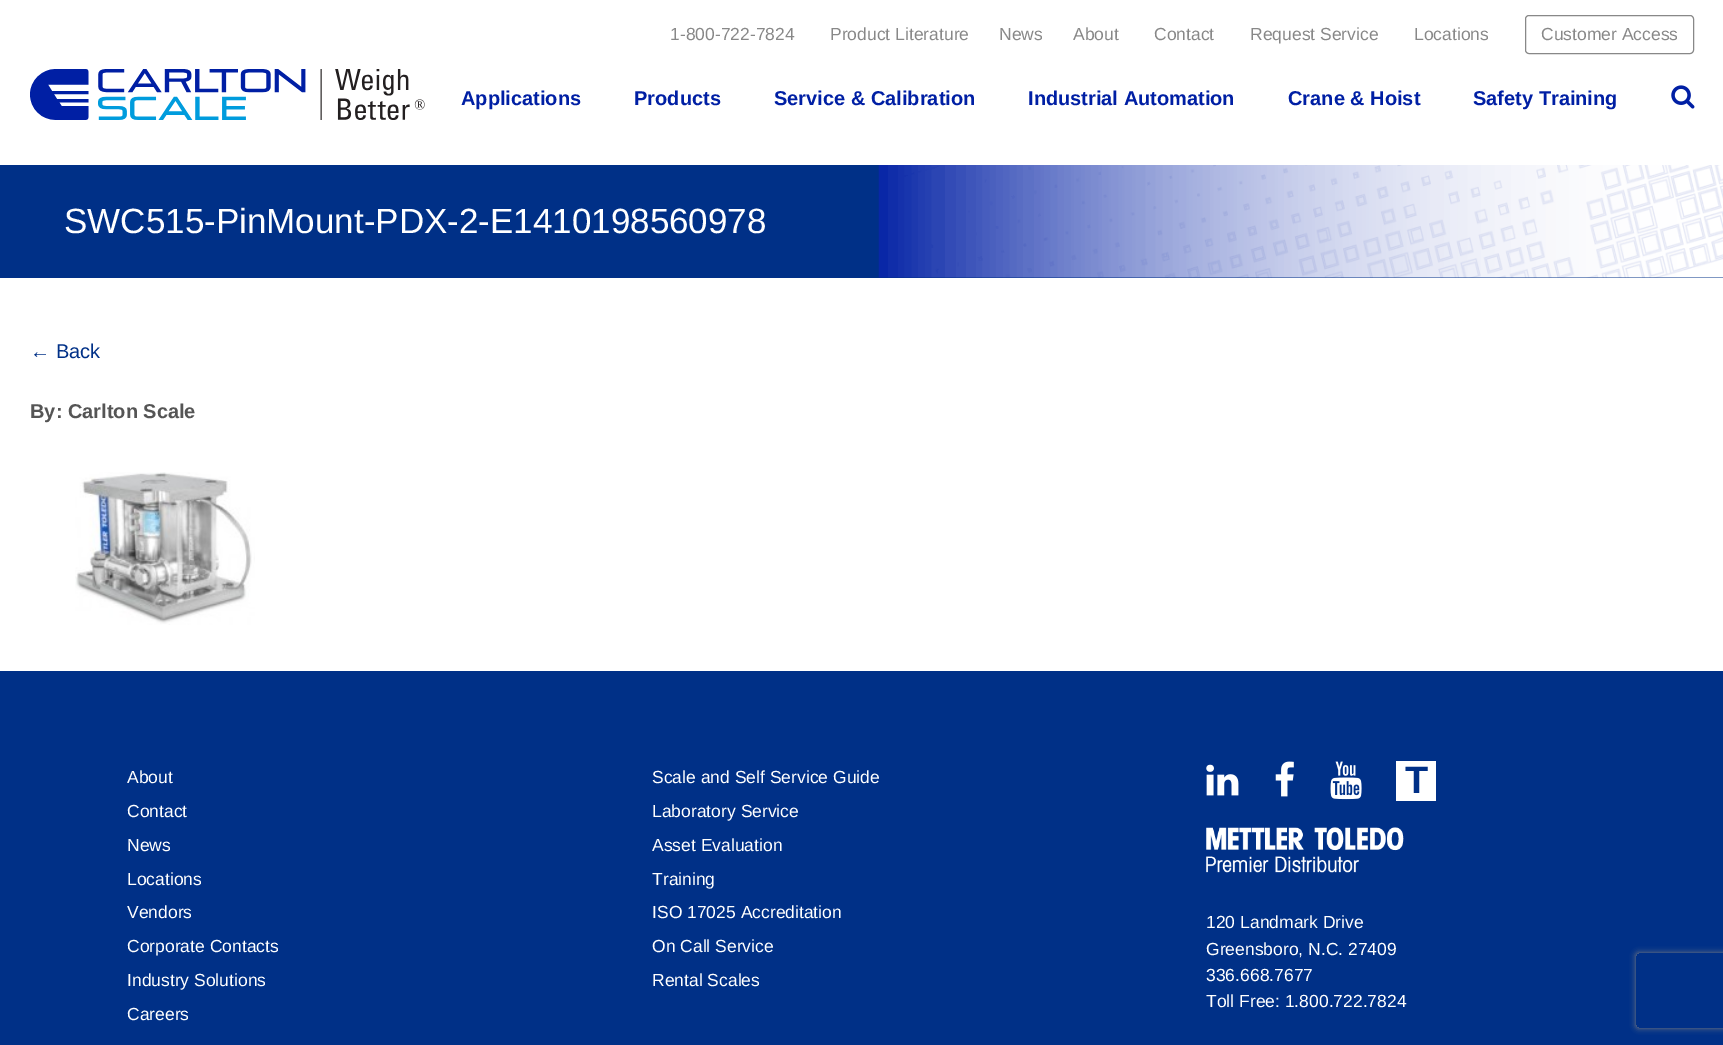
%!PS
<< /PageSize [1723 1045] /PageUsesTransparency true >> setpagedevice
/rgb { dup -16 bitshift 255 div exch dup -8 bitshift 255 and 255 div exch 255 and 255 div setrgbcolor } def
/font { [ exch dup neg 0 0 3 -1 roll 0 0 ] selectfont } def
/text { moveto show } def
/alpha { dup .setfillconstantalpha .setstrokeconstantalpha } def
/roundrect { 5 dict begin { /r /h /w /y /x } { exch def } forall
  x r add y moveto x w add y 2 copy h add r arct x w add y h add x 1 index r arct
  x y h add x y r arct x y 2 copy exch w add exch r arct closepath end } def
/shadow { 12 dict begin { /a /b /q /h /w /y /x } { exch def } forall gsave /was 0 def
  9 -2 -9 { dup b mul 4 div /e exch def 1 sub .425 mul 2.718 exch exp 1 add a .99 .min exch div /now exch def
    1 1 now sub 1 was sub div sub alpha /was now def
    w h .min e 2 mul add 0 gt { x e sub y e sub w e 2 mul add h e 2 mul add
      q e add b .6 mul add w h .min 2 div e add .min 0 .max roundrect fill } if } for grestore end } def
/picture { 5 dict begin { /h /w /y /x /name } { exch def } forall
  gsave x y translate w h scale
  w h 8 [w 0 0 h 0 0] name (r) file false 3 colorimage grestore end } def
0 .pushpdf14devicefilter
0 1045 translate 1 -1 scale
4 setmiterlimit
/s1 { /LiberationSans-Regular 17.5 font 16#888888 rgb } def
/s2 { /LiberationSans-Bold 20 font 16#001FA4 rgb } def
/s3 { /LiberationSans-Regular 35 font 16#FFFFFF rgb } def
/s4 { /LiberationSans-Regular 20 font 16#003087 rgb } def
/s5 { /LiberationSans-Bold 20 font 16#555555 rgb } def
/s6 { /LiberationSans-Regular 17.5 font 16#FFFFFF rgb } def
/s7 { /LiberationSans-Bold 38 font 16#003087 rgb } def
16#FFFFFF rgb
0 0 1723 1045 rectfill
s1
(1-800-722-7824) 670 40 text
(Product Literature) 830 40 text
(News) 999 40 text
(About) 1073 40 text
(Contact) 1154 40 text
(Request Service) 1250 40 text
(Locations) 1414 40 text
1525.5 15.5 168 38 3.5 roundrect stroke
(Customer Access) 1541 40 text
(pic1.raw) 30 69 395 51 picture
s2
(Applications) 461 105 text
(Products) 634 105 text
(Service & Calibration) 774 105 text
(Industrial Automation) 1028 105 text
(Crane & Hoist) 1288 105 text
(Safety Training) 1473 105 text
(pic2.raw) 1671 85 24 24 picture
16#003087 rgb
0 165 1723 113 rectfill
(pic3.raw) 878 165 845 113 picture
s3
(SWC515-PinMount-PDX-2-E1410198560978) 64 233 text
s4
(← Back) 30 358 text
s5
(By: Carlton Scale) 30 418 text
(pic4.raw) 75 472 180 153 picture
16#003087 rgb
0 671 1723 374 rectfill
s6
(About) 127 783 text
(Contact) 127 817 text
(News) 127 851 text
(Locations) 127 885 text
(Vendors) 127 918 text
(Corporate Contacts) 127 952 text
(Industry Solutions) 127 986 text
(Careers) 127 1020 text
(Scale and Self Service Guide) 652 783 text
(Laboratory Service) 652 817 text
(Asset Evaluation) 652 851 text
(Training) 652 885 text
(ISO 17025 Accreditation) 652 918 text
(On Call Service) 652 952 text
(Rental Scales) 652 986 text
(pic5.raw) 1206 764 33 32 picture
(pic6.raw) 1275 761 19 36 picture
(pic7.raw) 1330 761 32 39 picture
1396 761 40 40 rectfill
s7
(T) 1405 793 text
(pic8.raw) 1206 827 198 46 picture
s6
(120 Landmark Drive) 1206 928 text
(Greensboro, N.C. 27409) 1206 955 text
(336.668.7677) 1206 981 text
(Toll Free: 1.800.722.7824) 1206 1007 text
gsave
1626 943 moveto 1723 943 lineto 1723 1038 lineto 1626 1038 lineto closepath 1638.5 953 moveto 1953.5 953 lineto 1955 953 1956 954 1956 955.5 curveto 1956 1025.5 lineto 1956 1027 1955 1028 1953.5 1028 curveto 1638.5 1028 lineto 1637 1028 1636 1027 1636 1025.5 curveto 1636 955.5 lineto 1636 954 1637 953 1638.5 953 curveto closepath eoclip newpath
16#808080 rgb
1636 953 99 75 2.5 3 1 shadow
grestore
.poppdf14devicefilter showpage
